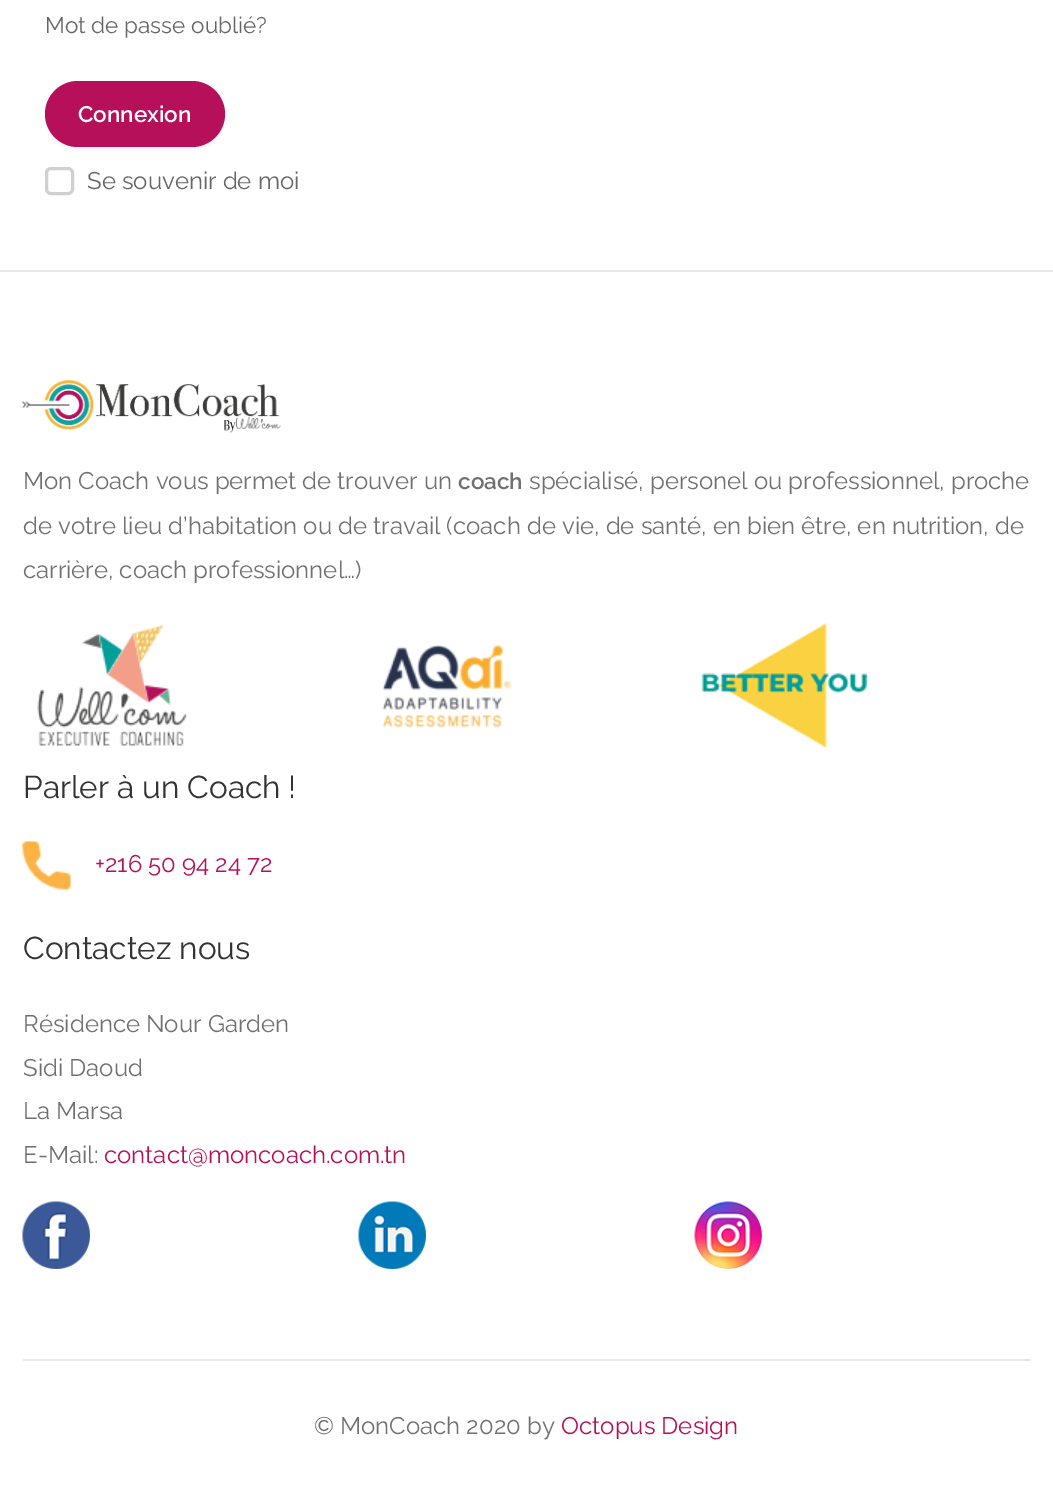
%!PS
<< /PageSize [1053 1490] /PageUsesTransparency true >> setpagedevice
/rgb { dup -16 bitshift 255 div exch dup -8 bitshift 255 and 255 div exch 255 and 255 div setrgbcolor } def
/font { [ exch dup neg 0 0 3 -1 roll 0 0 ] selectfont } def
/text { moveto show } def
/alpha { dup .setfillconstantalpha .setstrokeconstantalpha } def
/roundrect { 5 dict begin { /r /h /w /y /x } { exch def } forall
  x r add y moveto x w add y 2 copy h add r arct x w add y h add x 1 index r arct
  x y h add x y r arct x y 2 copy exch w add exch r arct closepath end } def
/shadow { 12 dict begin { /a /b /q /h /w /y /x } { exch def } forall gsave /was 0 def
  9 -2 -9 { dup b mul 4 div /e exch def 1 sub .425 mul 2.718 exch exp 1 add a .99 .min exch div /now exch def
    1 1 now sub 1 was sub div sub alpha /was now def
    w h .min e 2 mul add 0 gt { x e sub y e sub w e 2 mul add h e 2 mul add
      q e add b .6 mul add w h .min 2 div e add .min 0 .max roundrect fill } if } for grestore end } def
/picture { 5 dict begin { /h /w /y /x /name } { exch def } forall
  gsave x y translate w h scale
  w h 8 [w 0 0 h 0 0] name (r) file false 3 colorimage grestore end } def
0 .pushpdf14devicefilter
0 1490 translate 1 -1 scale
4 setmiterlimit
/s1 { /Raleway-Regular 22.5 font 16#666666 rgb } def
/s2 { /Raleway-SemiBold 22.5 font 16#FFFFFF rgb } def
/s3 { /Raleway-Regular 24 font 16#666666 rgb } def
/s4 { /Raleway-Regular 24 font 16#707070 rgb } def
/s5 { /Raleway-SemiBold 22.5 font 16#707070 rgb } def
/s6 { /Raleway-Regular 31.5 font 16#333333 rgb } def
/s7 { /Raleway-Regular 24 font 16#B6105A rgb } def
16#FFFFFF rgb
0 0 1053 1490 rectfill
s1
(Mot de passe oublié?) 45 33 text
16#000000 rgb
45 83 180 66 33 2 0.06 shadow
16#B6105A rgb
45 81 180 66 33 roundrect fill
s2
(Connexion) 78 122 text
16#D0D0D0 rgb
3 setlinewidth
46.5 168.5 26 25 4.5 roundrect stroke
s3
(Se souvenir de moi) 87 189 text
16#E8E8E8 rgb
0 270 1053 2 rectfill
(pic1.raw) 22 379 259 54 picture
s4
(Mon Coach vous permet de trouver un) 23 489 text
s5
(coach) 458 489 text
s4
(spécialisé, personel ou professionnel, proche) 529 489 text
(de votre lieu d’habitation ou de travail \(coach de vie, de santé, en bien être, en nutrition, de) 23 534 text
(carrière, coach professionnel…\)) 23 578 text
(pic2.raw) 37 625 150 121 picture
(pic3.raw) 382 644 130 84 picture
(pic4.raw) 701 622 167 127 picture
s6
(Parler à un Coach !) 23 798 text
(pic5.raw) 22 841 49 49 picture
s7
(+216 50 94 24 72) 95 872 text
s6
(Contactez nous) 23 959 text
s4
(Résidence Nour Garden) 23 1032 text
(Sidi Daoud) 23 1076 text
(La Marsa) 23 1119 text
(E-Mail:) 23 1163 text
s7
(contact@moncoach.com.tn) 104 1163 text
(pic6.raw) 22 1201 68 68 picture
(pic7.raw) 358 1201 68 68 picture
(pic8.raw) 694 1201 68 68 picture
16#E8E8E8 rgb
23 1359 1008 2 rectfill
s4
(© MonCoach 2020 by) 314 1434 text
s7
(Octopus Design) 561 1434 text
.poppdf14devicefilter showpage
